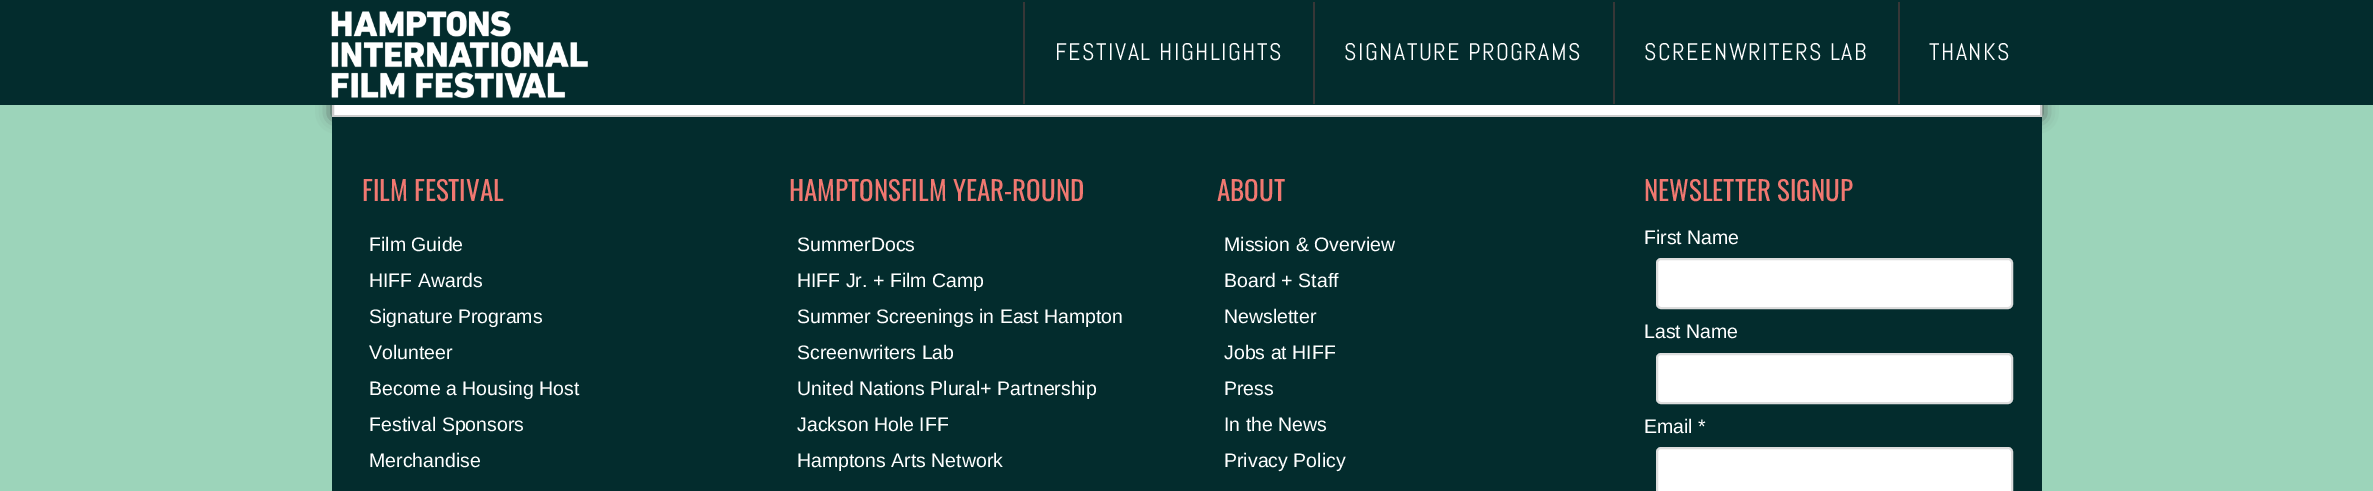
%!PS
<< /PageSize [2373 491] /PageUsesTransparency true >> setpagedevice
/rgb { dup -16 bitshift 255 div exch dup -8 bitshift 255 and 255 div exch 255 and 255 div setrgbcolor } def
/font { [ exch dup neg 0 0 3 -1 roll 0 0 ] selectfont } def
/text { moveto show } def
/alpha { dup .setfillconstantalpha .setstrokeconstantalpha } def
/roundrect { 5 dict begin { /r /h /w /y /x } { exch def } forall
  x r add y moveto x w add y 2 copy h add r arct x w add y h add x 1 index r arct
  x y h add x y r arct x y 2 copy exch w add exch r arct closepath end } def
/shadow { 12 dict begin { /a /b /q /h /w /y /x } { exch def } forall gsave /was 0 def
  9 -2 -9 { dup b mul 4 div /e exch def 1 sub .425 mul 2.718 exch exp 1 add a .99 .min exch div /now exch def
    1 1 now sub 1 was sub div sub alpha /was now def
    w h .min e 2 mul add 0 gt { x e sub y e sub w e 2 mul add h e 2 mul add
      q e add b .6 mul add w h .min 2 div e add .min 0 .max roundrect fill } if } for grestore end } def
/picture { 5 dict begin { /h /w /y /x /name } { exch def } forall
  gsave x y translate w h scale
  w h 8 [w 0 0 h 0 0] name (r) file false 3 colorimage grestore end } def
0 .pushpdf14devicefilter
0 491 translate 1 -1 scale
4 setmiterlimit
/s1 { /Oswald-Regular 27 font 16#F17871 rgb } def
/s2 { /LiberationSans-Regular 19.5 font 16#FFFFFF rgb } def
16#9CD4BA rgb
0 0 2373 491 rectfill
16#444444 rgb
332 -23 1710 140 0 7.5 1 shadow
16#FFFFFF rgb
334 105 1706 10 rectfill
16#CCCCCC rgb
2 setlinewidth
333 -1 1708 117 rectstroke
16#032C2D rgb
0 0 2373 105 rectfill
(pic1.raw) 331 11 257 88 picture
16#373737 rgb
1023 2 2 102 rectfill
/Abel-Regular 24 font
16#FFFFFF rgb
1055 60 moveto 1.5 0 (FESTIVAL HIGHLIGHTS) ashow
16#373737 rgb
1313 2 2 102 rectfill
16#FFFFFF rgb
1344 60 moveto 1.5 0 (SIGNATURE PROGRAMS) ashow
16#373737 rgb
1613 2 2 102 rectfill
16#FFFFFF rgb
1644 60 moveto 1.5 0 (SCREENWRITERS LAB) ashow
16#373737 rgb
1898 2 2 102 rectfill
16#FFFFFF rgb
1929 60 moveto 1.5 0 (THANKS) ashow
16#032C2D rgb
332 117 1710 374 rectfill
s1
(FILM FESTIVAL) 362 201 text
s2
(Film Guide) 369 251 text
(HIFF Awards) 369 287 text
(Signature Programs) 369 323 text
(Volunteer) 369 359 text
(Become a Housing Host) 369 395 text
(Festival Sponsors) 369 431 text
(Merchandise) 369 467 text
s1
(HAMPTONSFILM YEAR-ROUND) 789 201 text
s2
(SummerDocs) 797 251 text
(HIFF Jr. + Film Camp) 797 287 text
(Summer Screenings in East Hampton) 797 323 text
(Screenwriters Lab) 797 359 text
(United Nations Plural+ Partnership) 797 395 text
(Jackson Hole IFF) 797 431 text
(Hamptons Arts Network) 797 467 text
s1
(ABOUT) 1217 201 text
s2
(Mission & Overview) 1224 251 text
(Board + Staff) 1224 287 text
(Newsletter) 1224 323 text
(Jobs at HIFF) 1224 359 text
(Press) 1224 395 text
(In the News) 1224 431 text
(Privacy Policy) 1224 467 text
s1
(NEWSLETTER SIGNUP) 1644 201 text
s2
(First Name) 1644 244 text
1657 259 355 49 4 roundrect gsave fill grestore
16#DDDDDD rgb
stroke
s2
(Last Name) 1644 338 text
1657 354 355 49 4 roundrect gsave fill grestore
16#DDDDDD rgb
stroke
s2
(Email *) 1644 433 text
1657 448 355 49 4 roundrect gsave fill grestore
16#DDDDDD rgb
stroke
.poppdf14devicefilter showpage
